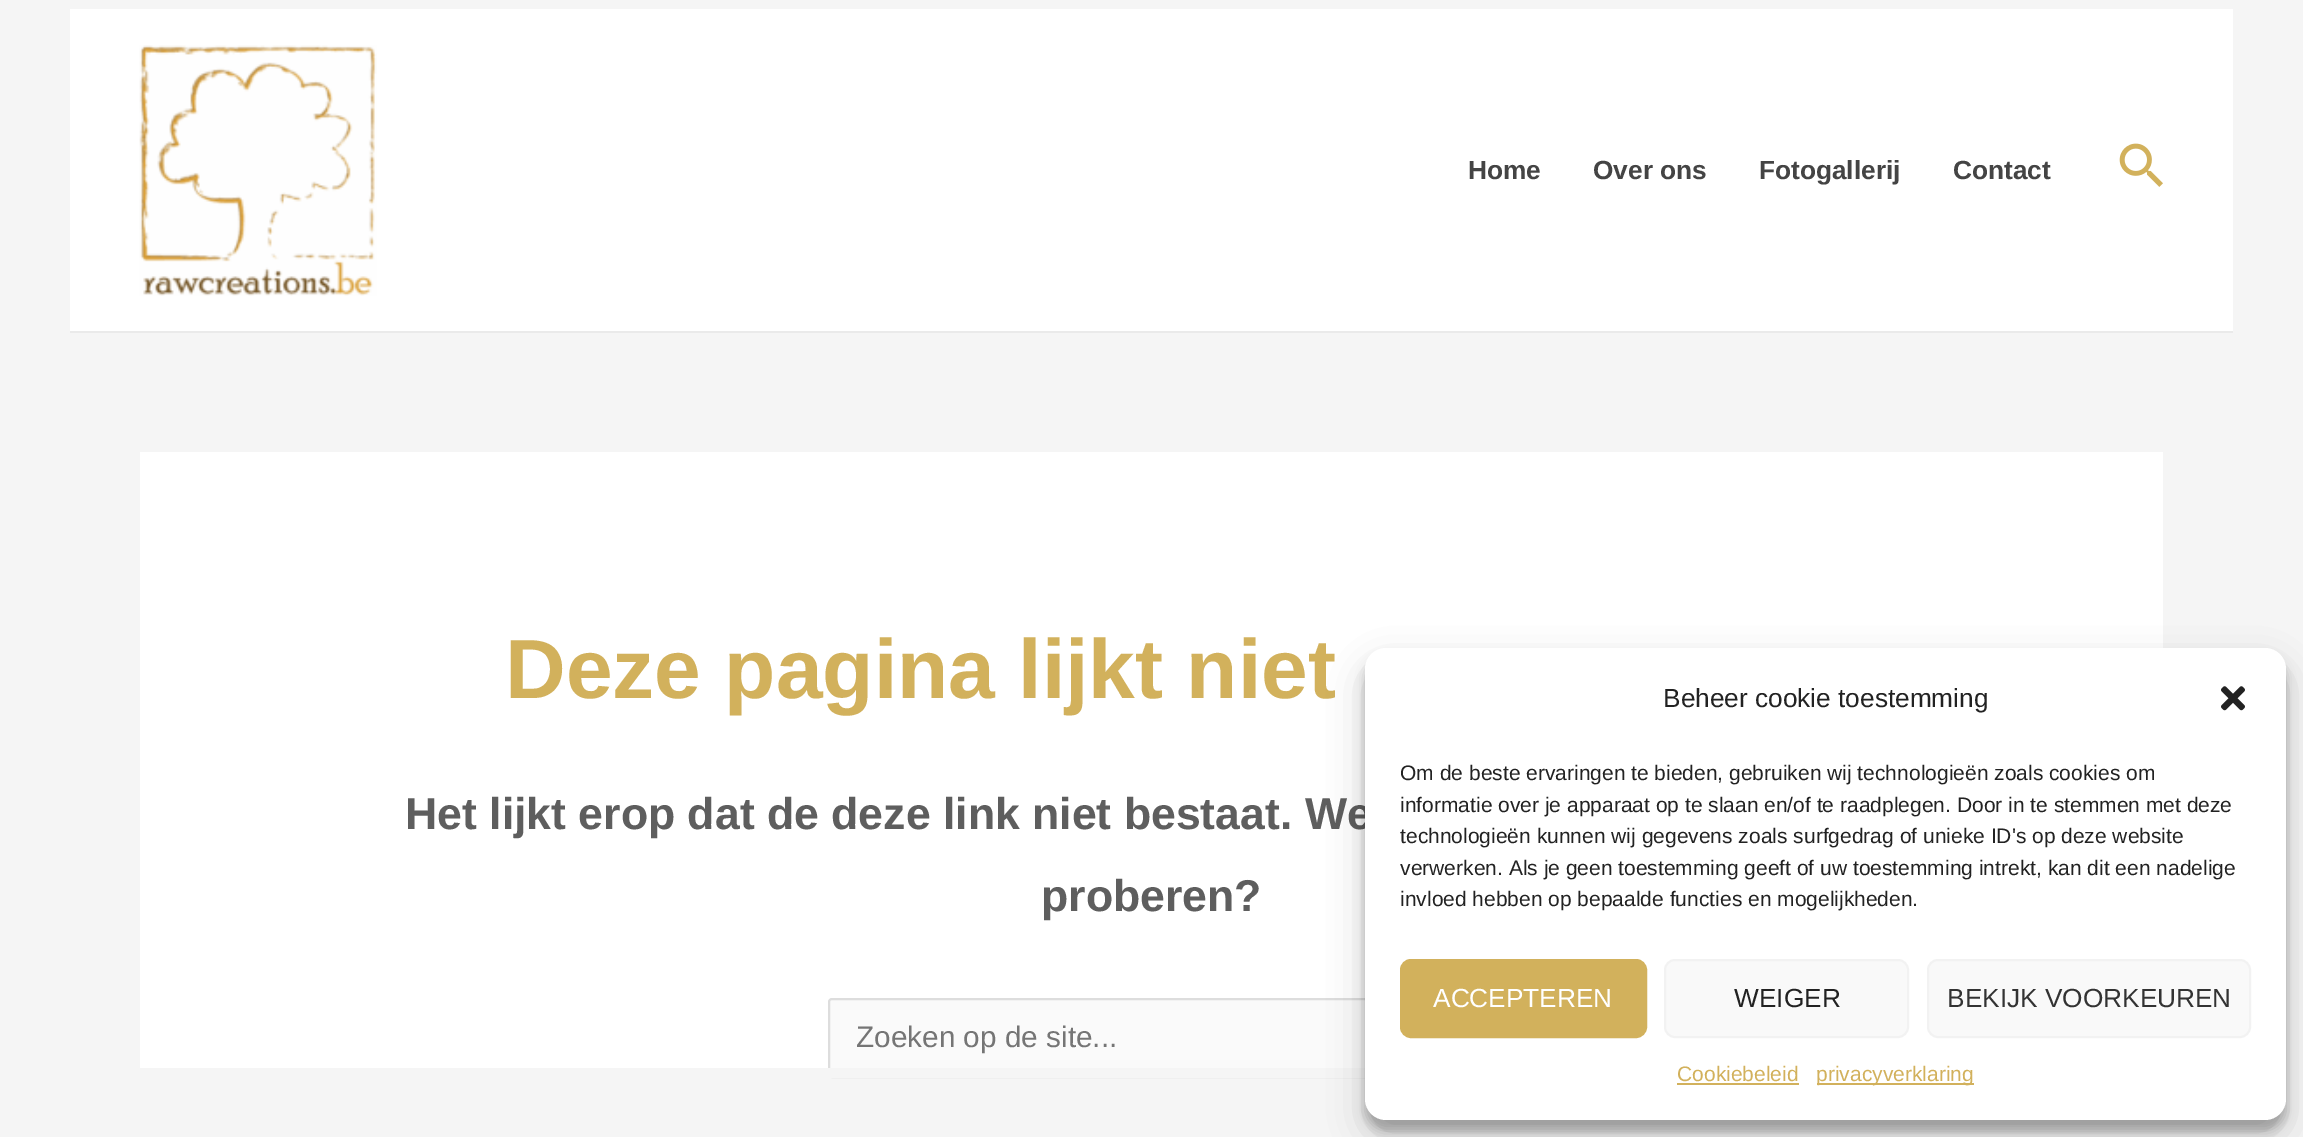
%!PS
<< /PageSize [2303 1137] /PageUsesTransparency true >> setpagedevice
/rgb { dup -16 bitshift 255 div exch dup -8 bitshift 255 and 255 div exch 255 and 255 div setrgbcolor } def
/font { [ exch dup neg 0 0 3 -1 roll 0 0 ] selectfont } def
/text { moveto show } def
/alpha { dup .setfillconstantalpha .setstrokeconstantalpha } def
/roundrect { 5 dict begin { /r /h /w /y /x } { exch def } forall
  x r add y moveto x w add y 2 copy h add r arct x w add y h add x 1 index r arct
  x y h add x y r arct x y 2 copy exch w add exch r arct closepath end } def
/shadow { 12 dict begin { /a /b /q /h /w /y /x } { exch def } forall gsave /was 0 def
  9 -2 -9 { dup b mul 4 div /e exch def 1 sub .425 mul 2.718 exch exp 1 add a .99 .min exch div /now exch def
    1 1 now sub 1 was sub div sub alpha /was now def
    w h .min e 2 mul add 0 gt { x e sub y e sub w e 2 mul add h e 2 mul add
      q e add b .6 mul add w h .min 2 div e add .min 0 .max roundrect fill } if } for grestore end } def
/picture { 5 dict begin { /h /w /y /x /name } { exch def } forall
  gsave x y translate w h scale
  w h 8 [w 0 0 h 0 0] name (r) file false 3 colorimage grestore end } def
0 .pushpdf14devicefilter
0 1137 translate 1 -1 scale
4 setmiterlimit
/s1 { /LiberationSans-Bold 26.25 font 16#444444 rgb } def
/s2 { /LiberationSans-Bold 84 font 16#D2B15C rgb } def
/s3 { /LiberationSans-Bold 44.6 font 16#5E5E5E rgb } def
/s4 { /LiberationSans-Regular 29.75 font 16#757575 rgb } def
/s5 { /LiberationSans-Regular 26.25 font 16#222222 rgb } def
/s6 { /LiberationSans-Regular 21 font 16#222222 rgb } def
/s7 { /LiberationSans-Regular 26.25 font 16#FFFFFF rgb } def
/s8 { /LiberationSans-Regular 26.25 font 16#333333 rgb } def
/s9 { /LiberationSans-Regular 21 font 16#D2B15C rgb } def
16#F5F5F5 rgb
0 0 2303 1137 rectfill
16#FFFFFF rgb
70 9 2163 322 rectfill
16#EAEAEA rgb
70 331 2163 2 rectfill
(pic1.raw) 139 45 238 251 picture
s1
(Home) 1468 179 text
(Over ons) 1593 179 text
(Fotogallerij) 1759 179 text
(Contact) 1953 179 text
(pic2.raw) 2119 143 44 44 picture
16#FFFFFF rgb
140 452 2023 616 rectfill
s2
(Deze pagina lijkt niet) 505 698 text
s3
(Het lijkt erop dat de deze link niet bestaat. We) 405 829 text
(proberen?) 1041 911 text
16#FAFAFA rgb
829 999 645 78 3 roundrect gsave fill grestore
16#DDDDDD rgb
2 setlinewidth
stroke
s4
(Zoeken op de site...) 856 1047 text
16#F5F5F5 rgb
828 1068 647 10 rectfill
16#000000 rgb
1365 658 921 473 21 5 0.23 shadow
1365 665 921 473 21 17.5 0.19 shadow
16#FFFFFF rgb
1365 648 921 472 21 roundrect fill
s5
(Beheer cookie toestemming) 1663 707 text
(pic3.raw) 2221 686 24 25 picture
s6
(Om de beste ervaringen te bieden, gebruiken wij technologieën zoals cookies om) 1400 780 text
(informatie over je apparaat op te slaan en/of te raadplegen. Door in te stemmen met deze) 1400 812 text
(technologieën kunnen wij gegevens zoals surfgedrag of unieke ID's op deze website) 1400 843 text
(verwerken. Als je geen toestemming geeft of uw toestemming intrekt, kan dit een nadelige) 1400 875 text
(invloed hebben op bepaalde functies en mogelijkheden.) 1400 906 text
16#D2B15C rgb
1401 960 245 77 10 roundrect gsave fill grestore
stroke
s7
(ACCEPTEREN) 1433 1007 text
16#F9F9F9 rgb
1665 960 243 77 10 roundrect gsave fill grestore
16#F2F2F2 rgb
stroke
s5
(WEIGER) 1734 1007 text
16#F9F9F9 rgb
1928 960 322 77 10 roundrect gsave fill grestore
16#F2F2F2 rgb
stroke
s8
(BEKIJK VOORKEUREN) 1947 1007 text
s9
(Cookiebeleid) 1677 1081 text
1677 1083 122 2 rectfill
1817 1083 157 2 rectfill
(privacyverklaring) 1816 1081 text
.poppdf14devicefilter showpage
